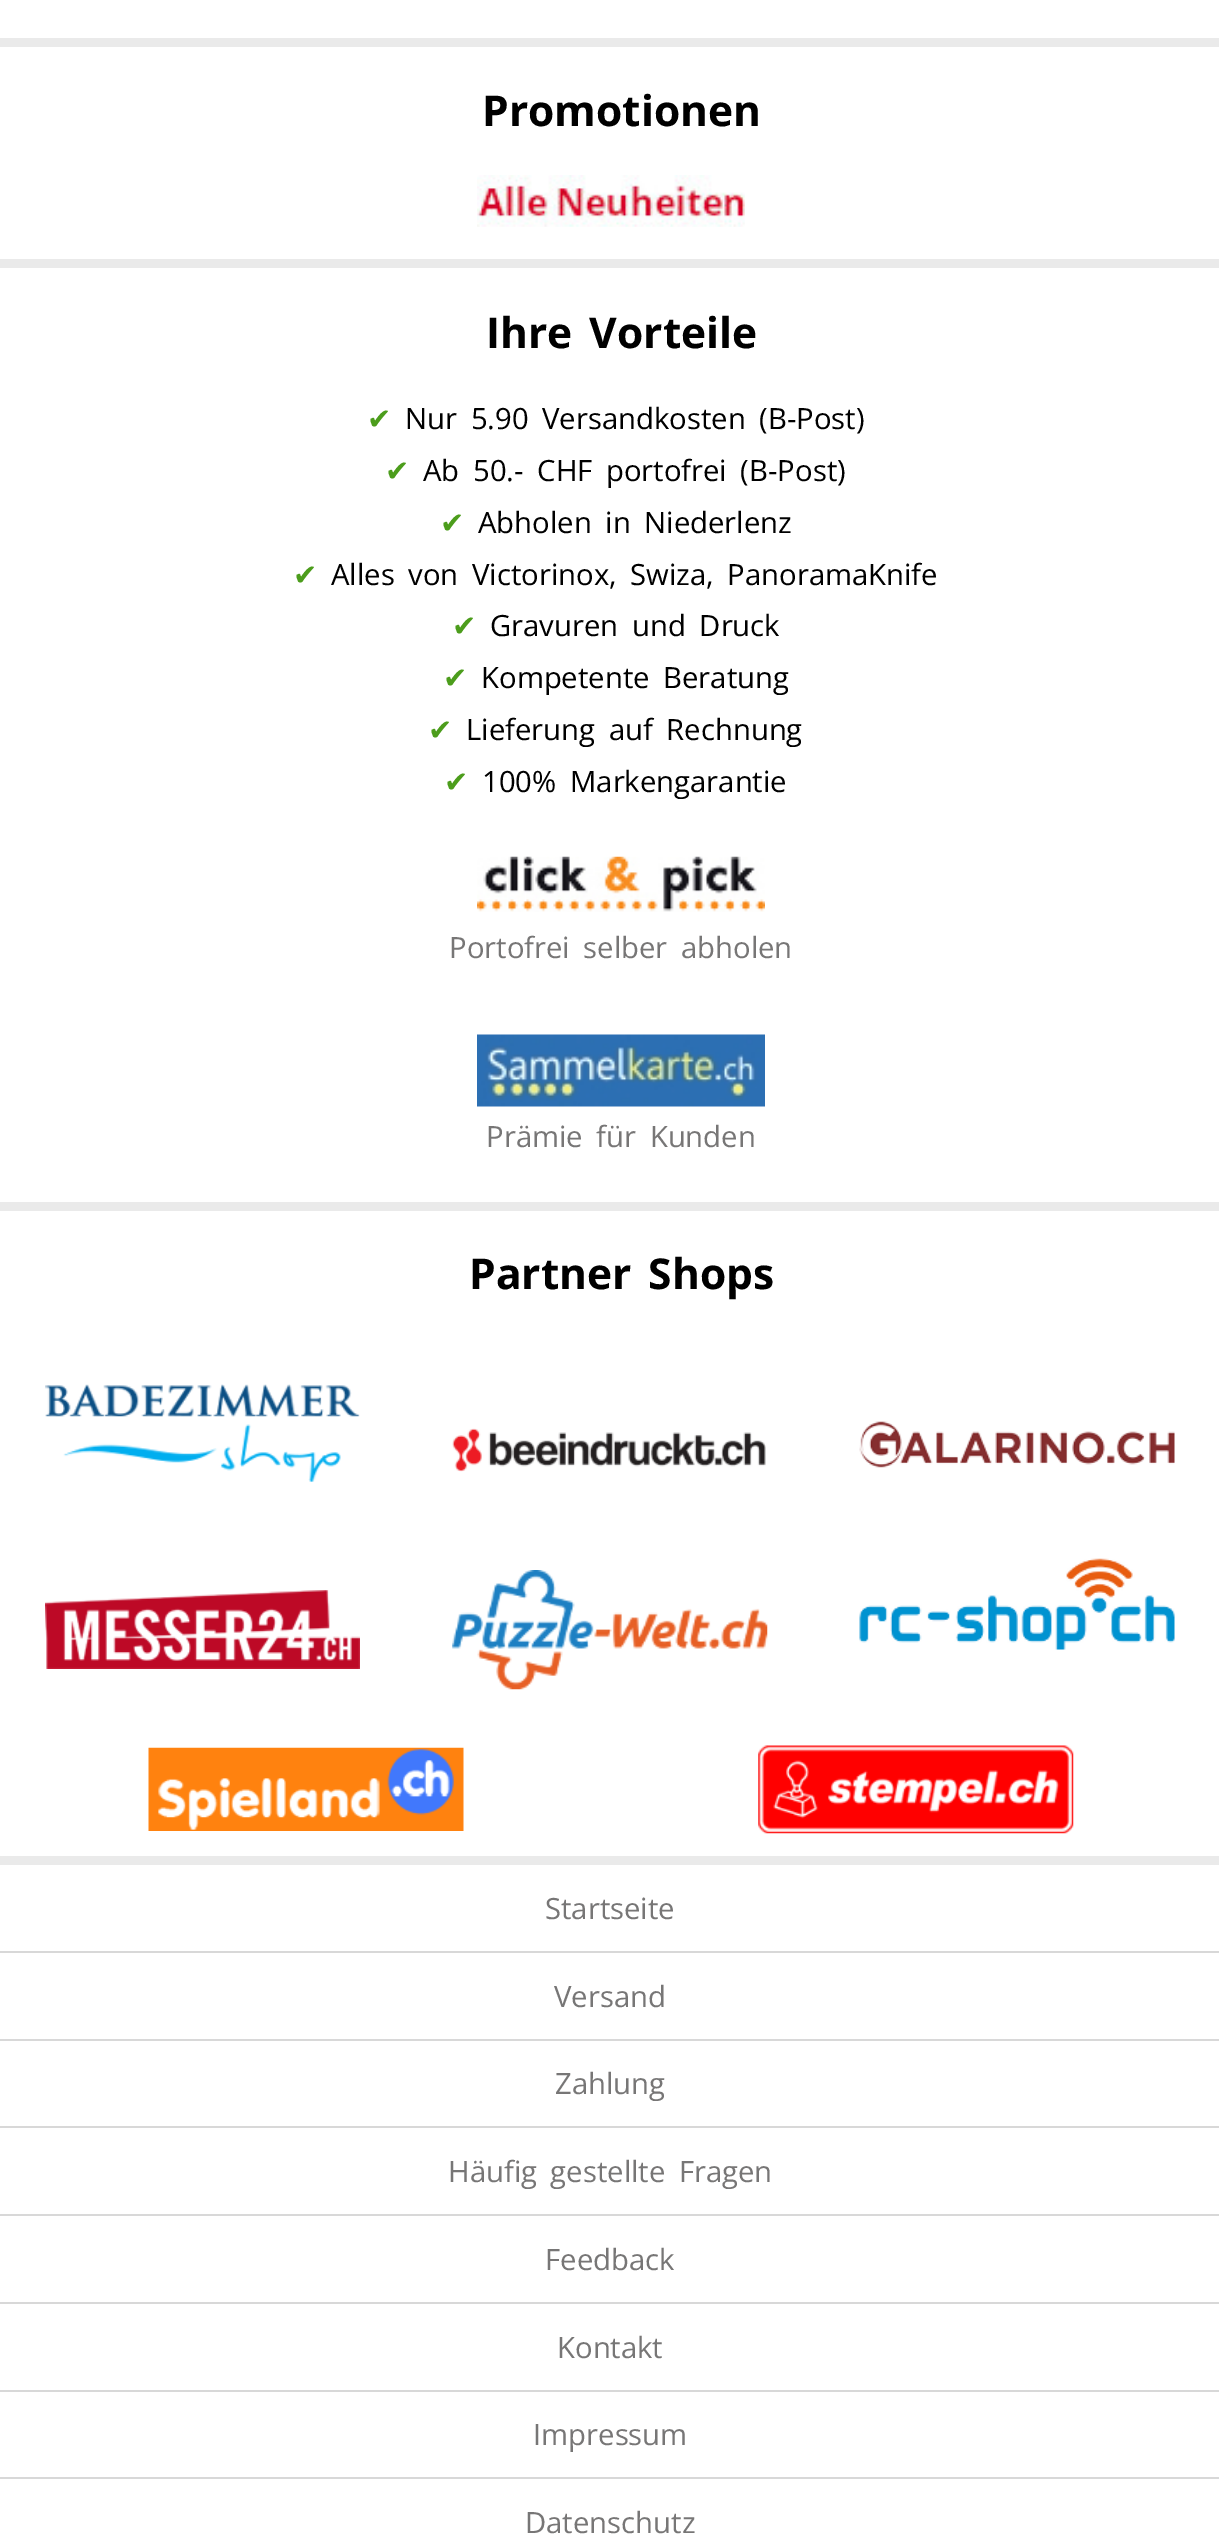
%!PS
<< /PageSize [1219 2545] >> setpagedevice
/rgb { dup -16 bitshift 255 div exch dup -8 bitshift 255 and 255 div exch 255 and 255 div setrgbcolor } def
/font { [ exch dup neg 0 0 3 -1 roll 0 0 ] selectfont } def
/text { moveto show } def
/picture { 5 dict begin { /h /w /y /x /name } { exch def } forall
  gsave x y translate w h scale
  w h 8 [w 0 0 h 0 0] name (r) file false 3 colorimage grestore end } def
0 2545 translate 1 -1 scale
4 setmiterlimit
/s1 { /OpenSans-Bold 42.5 font 16#000000 rgb } def
/s2 { /DejaVuSans-Regular 29.25 font 16#4C9D1C rgb } def
/s3 { /OpenSans-Regular 29.25 font 16#777676 rgb } def
16#EAEAEA rgb
0 0 1219 2545 rectfill
16#FFFFFF rgb
0 0 1219 38 rectfill
0 47 1219 212 rectfill
s1
(Promotionen) 482 126 text
(pic1.raw) 477 175 268 52 picture
16#FFFFFF rgb
0 268 1219 934 rectfill
16#000000 rgb
486 348 moveto 6 0 32 (Ihre Vorteile) widthshow
s2
(✔) 367 429 text
/OpenSans-Regular 29.25 font
16#000000 rgb
405 429 moveto 6 0 32 (Nur 5.90 Versandkosten \(B-Post\)) widthshow
s2
(✔) 385 481 text
/OpenSans-Regular 29.25 font
16#000000 rgb
423 481 moveto 6 0 32 (Ab 50.- CHF portofrei \(B-Post\)) widthshow
s2
(✔) 440 533 text
/OpenSans-Regular 29.25 font
16#000000 rgb
478 533 moveto 6 0 32 (Abholen in Niederlenz) widthshow
s2
(✔) 293 585 text
/OpenSans-Regular 29.25 font
16#000000 rgb
331 585 moveto 6 0 32 (Alles von Victorinox, Swiza, PanoramaKnife) widthshow
s2
(✔) 452 636 text
/OpenSans-Regular 29.25 font
16#000000 rgb
490 636 moveto 6 0 32 (Gravuren und Druck) widthshow
s2
(✔) 443 688 text
/OpenSans-Regular 29.25 font
16#000000 rgb
481 688 moveto 6 0 32 (Kompetente Beratung) widthshow
s2
(✔) 428 740 text
/OpenSans-Regular 29.25 font
16#000000 rgb
466 740 moveto 6 0 32 (Lieferung auf Rechnung) widthshow
s2
(✔) 444 792 text
/OpenSans-Regular 29.25 font
16#000000 rgb
482 792 moveto 6 0 32 (100% Markengarantie) widthshow
(pic2.raw) 477 856 288 56 picture
16#777676 rgb
449 958 moveto 6 0 32 (Portofrei selber abholen) widthshow
(pic3.raw) 477 1034 288 73 picture
486 1147 moveto 6 0 32 (Prämie für Kunden) widthshow
16#FFFFFF rgb
0 1211 1219 645 rectfill
/OpenSans-Bold 42.5 font
16#000000 rgb
469 1289 moveto 6 0 32 (Partner Shops) widthshow
(pic4.raw) 45 1384 315 98 picture
(pic5.raw) 452 1428 314 44 picture
(pic6.raw) 859 1421 316 47 picture
(pic7.raw) 45 1590 315 79 picture
(pic8.raw) 452 1570 316 120 picture
(pic9.raw) 859 1558 316 92 picture
(pic10.raw) 148 1747 316 84 picture
(pic11.raw) 758 1745 316 89 picture
16#FFFFFF rgb
0 1865 1219 680 rectfill
16#D8D8D8 rgb
0 1951 1219 2 rectfill
s3
(Startseite) 545 1919 text
16#D8D8D8 rgb
0 2039 1219 2 rectfill
s3
(Versand) 554 2007 text
16#D8D8D8 rgb
0 2126 1219 2 rectfill
s3
(Zahlung) 555 2094 text
16#D8D8D8 rgb
0 2214 1219 2 rectfill
16#777676 rgb
448 2182 moveto 6 0 32 (Häufig gestellte Fragen) widthshow
16#D8D8D8 rgb
0 2302 1219 2 rectfill
s3
(Feedback) 545 2270 text
16#D8D8D8 rgb
0 2390 1219 2 rectfill
s3
(Kontakt) 557 2358 text
16#D8D8D8 rgb
0 2477 1219 2 rectfill
s3
(Impressum) 533 2445 text
(Datenschutz) 525 2533 text
showpage
